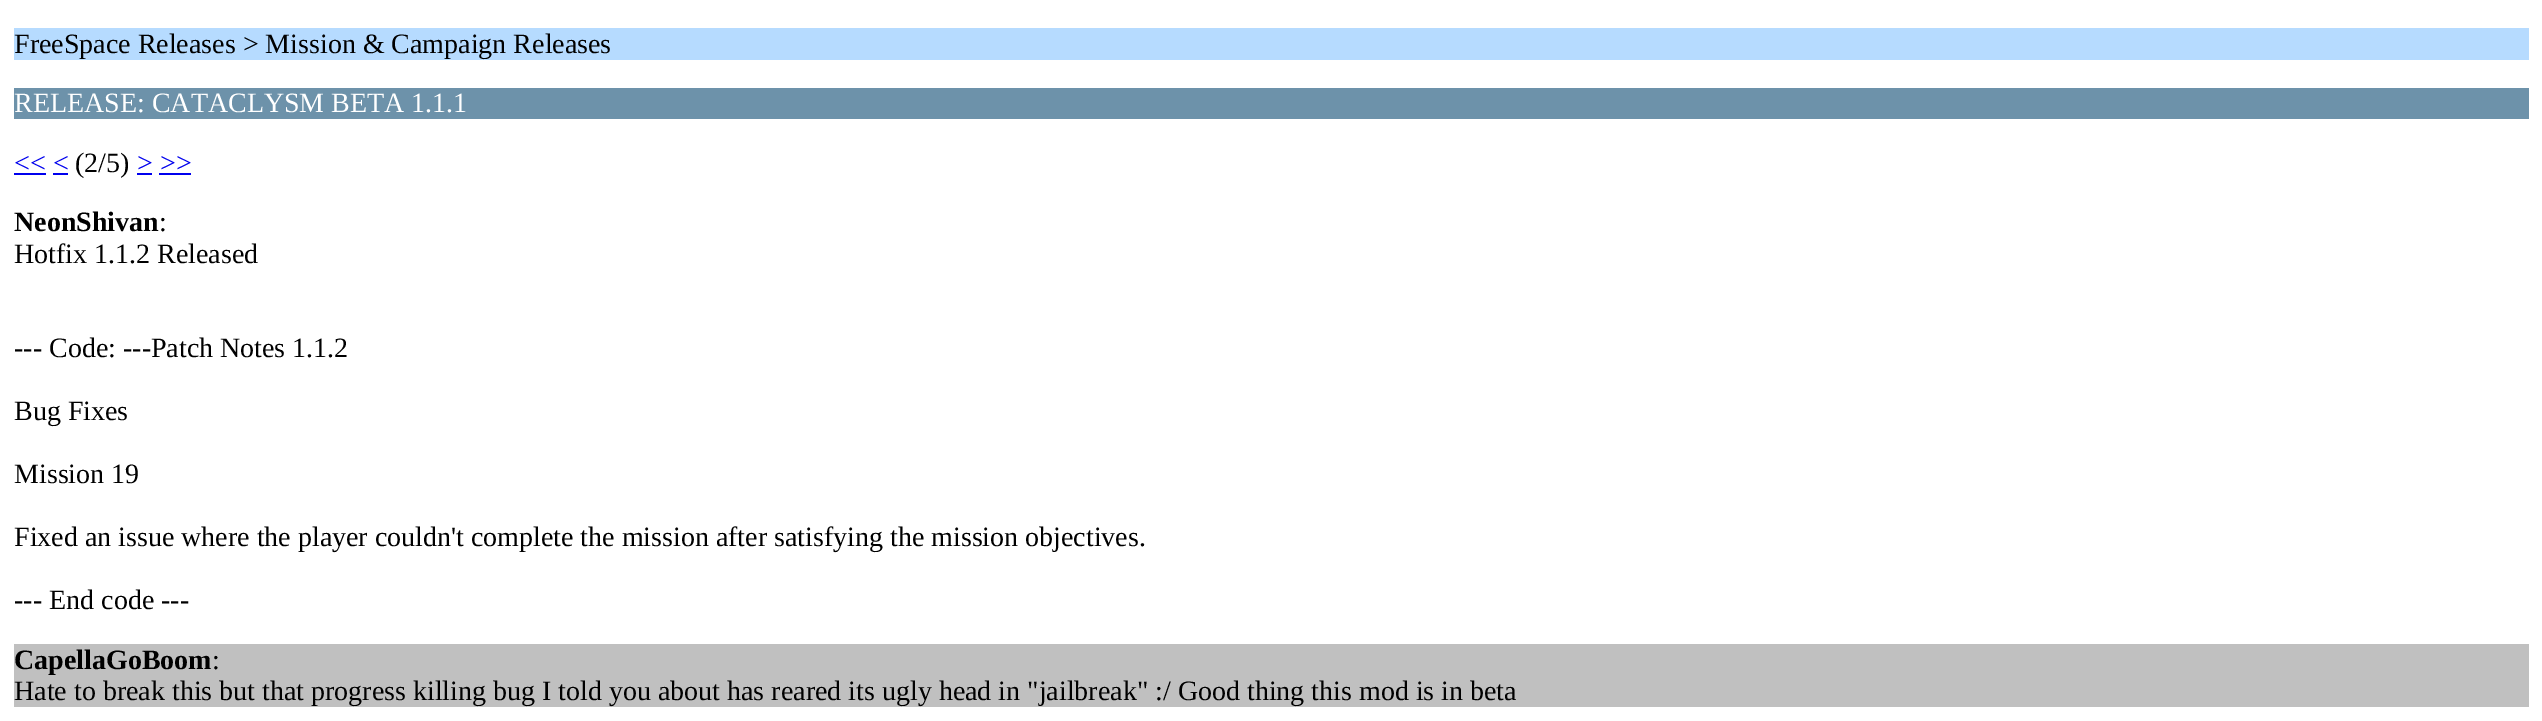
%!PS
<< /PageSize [2542 721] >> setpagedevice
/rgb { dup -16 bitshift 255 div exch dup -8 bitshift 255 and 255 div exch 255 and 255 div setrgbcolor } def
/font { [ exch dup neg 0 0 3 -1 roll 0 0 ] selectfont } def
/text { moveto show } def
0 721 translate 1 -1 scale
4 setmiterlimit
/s1 { /LiberationSerif-Regular 28 font 16#000000 rgb } def
/s2 { /LiberationSerif-Regular 28 font 16#FFFFFF rgb } def
/s3 { /LiberationSerif-Regular 28 font 16#0000EE rgb } def
/s4 { /LiberationSerif-Bold 28 font 16#000000 rgb } def
16#FFFFFF rgb
0 0 2542 721 rectfill
16#B6DBFF rgb
14 28 2515 32 rectfill
s1
(FreeSpace Releases > Mission & Campaign Releases) 14 53 text
16#6D92AA rgb
14 88 2515 31 rectfill
s2
(RELEASE: CATACLYSM BETA 1.1.1) 14 112 text
s3
(<< <) 14 172 text
14 173 32 2 rectfill
s1
(\(2/5\)) 75 172 text
s3
(> >>) 137 172 text
137 173 15 2 rectfill
53 173 15 2 rectfill
159 173 32 2 rectfill
s4
(NeonShivan) 14 231 text
s1
(:) 159 231 text
(Hotfix 1.1.2 Released) 14 263 text
(--- Code: ---Patch Notes 1.1.2) 14 357 text
(Bug Fixes) 14 420 text
(Mission 19) 14 483 text
(Fixed an issue where the player couldn't complete the mission after satisfying the mission objectives.) 14 546 text
(--- End code ---) 14 609 text
16#C0C0C0 rgb
14 644 2515 63 rectfill
s4
(CapellaGoBoom) 14 669 text
s1
(:) 212 669 text
(Hate to break this but that progress killing bug I told you about has reared its ugly head in "jailbreak" :/ Good thing this mod is in beta) 14 700 text
showpage
